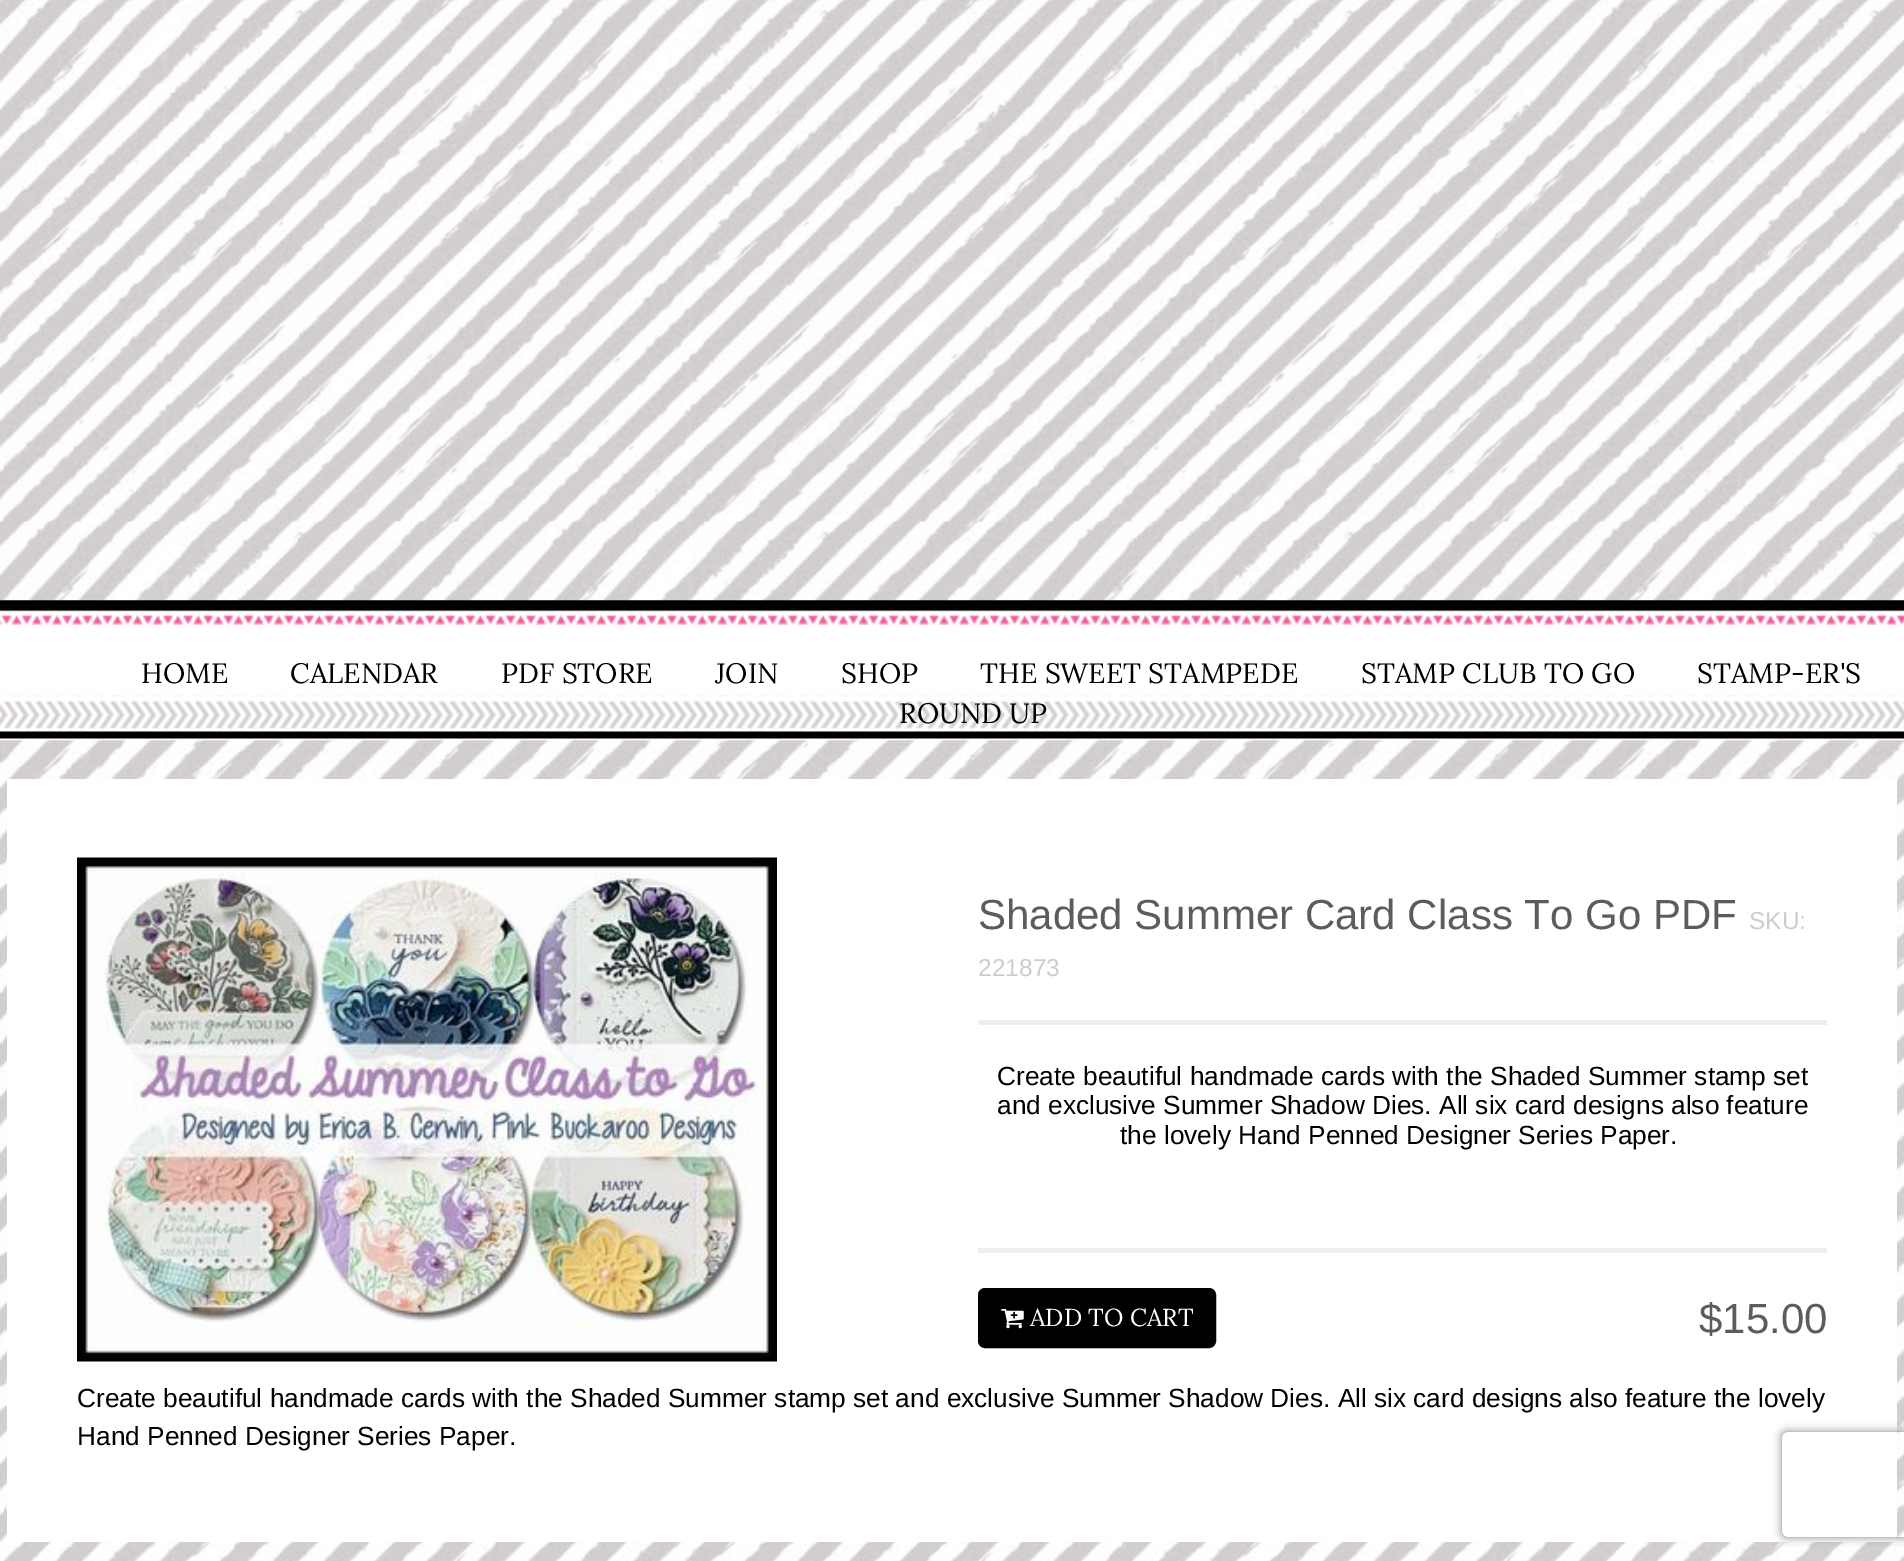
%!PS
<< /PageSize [1904 1561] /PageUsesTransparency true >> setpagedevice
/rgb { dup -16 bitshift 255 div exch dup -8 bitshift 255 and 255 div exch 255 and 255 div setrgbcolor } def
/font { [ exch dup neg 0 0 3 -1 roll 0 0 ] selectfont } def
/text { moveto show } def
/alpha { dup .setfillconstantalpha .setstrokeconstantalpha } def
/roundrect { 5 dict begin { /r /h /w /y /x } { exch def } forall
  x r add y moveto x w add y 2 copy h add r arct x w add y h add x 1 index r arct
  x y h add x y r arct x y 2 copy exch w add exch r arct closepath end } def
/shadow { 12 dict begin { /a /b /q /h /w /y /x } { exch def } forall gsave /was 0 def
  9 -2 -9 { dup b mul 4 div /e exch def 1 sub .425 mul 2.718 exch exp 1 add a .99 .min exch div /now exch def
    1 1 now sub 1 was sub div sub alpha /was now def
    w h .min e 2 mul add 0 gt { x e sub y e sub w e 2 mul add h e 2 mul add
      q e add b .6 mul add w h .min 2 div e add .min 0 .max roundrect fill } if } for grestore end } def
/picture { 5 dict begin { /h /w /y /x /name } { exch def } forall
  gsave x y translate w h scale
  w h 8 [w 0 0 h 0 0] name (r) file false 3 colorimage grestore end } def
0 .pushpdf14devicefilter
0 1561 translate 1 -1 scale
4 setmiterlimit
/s1 { /Lora-Regular 28 font 16#000000 rgb } def
/s2 { /LiberationSans-Regular 42 font 16#5C5C5C rgb } def
/s3 { /LiberationSans-Regular 24.5 font 16#CCCCCC rgb } def
/s4 { /LiberationSans-Regular 26.25 font 16#000000 rgb } def
/s5 { /Lora-Regular 24.5 font 16#FFFFFF rgb } def
16#FFFFFF rgb
0 0 1904 1561 rectfill
(pic1.raw) 0 0 1904 1561 picture
(pic2.raw) 0 600 1904 141 picture
s1
(HOME) 141 683 text
(CALENDAR) 290 683 text
(PDF STORE) 501 683 text
(JOIN) 715 683 text
(SHOP) 841 683 text
(THE SWEET STAMPEDE) 980 683 text
(STAMP CLUB TO GO) 1361 683 text
(STAMP-ER'S) 1697 683 text
(ROUND UP) 899 723 text
16#FFFFFF rgb
7 779 1890 763 rectfill
(pic3.raw) 77 857 700 505 picture
s2
(Shaded Summer Card Class To Go PDF) 978 929 text
s3
(SKU:) 1749 929 text
(221873) 978 976 text
16#EEEEEE rgb
978 1020 849 5 rectfill
s4
(Create beautiful handmade cards with the Shaded Summer stamp set) 997 1085 text
(and exclusive Summer Shadow Dies. All six card designs also feature) 997 1114 text
(the lovely Hand Penned Designer Series Paper.) 1120 1144 text
16#EEEEEE rgb
978 1248 849 5 rectfill
16#000000 rgb
979 1289 236 58 6 roundrect gsave fill grestore
2 setlinewidth
stroke
(pic4.raw) 1001 1309 23 20 picture
s5
(ADD TO CART) 1030 1326 text
s2
($15.00) 1699 1333 text
s4
(Create beautiful handmade cards with the Shaded Summer stamp set and exclusive Summer Shadow Dies. All six card designs also feature the lovely) 77 1407 text
(Hand Penned Designer Series Paper.) 77 1445 text
gsave
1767 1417 moveto 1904 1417 lineto 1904 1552 lineto 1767 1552 lineto closepath 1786 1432 moveto 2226 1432 lineto 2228 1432 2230 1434 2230 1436 curveto 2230 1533 lineto 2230 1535 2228 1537 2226 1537 curveto 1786 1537 lineto 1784 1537 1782 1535 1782 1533 curveto 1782 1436 lineto 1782 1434 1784 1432 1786 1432 curveto closepath eoclip newpath
16#808080 rgb
1782 1432 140 105 4 4.5 1 shadow
grestore
.poppdf14devicefilter showpage
